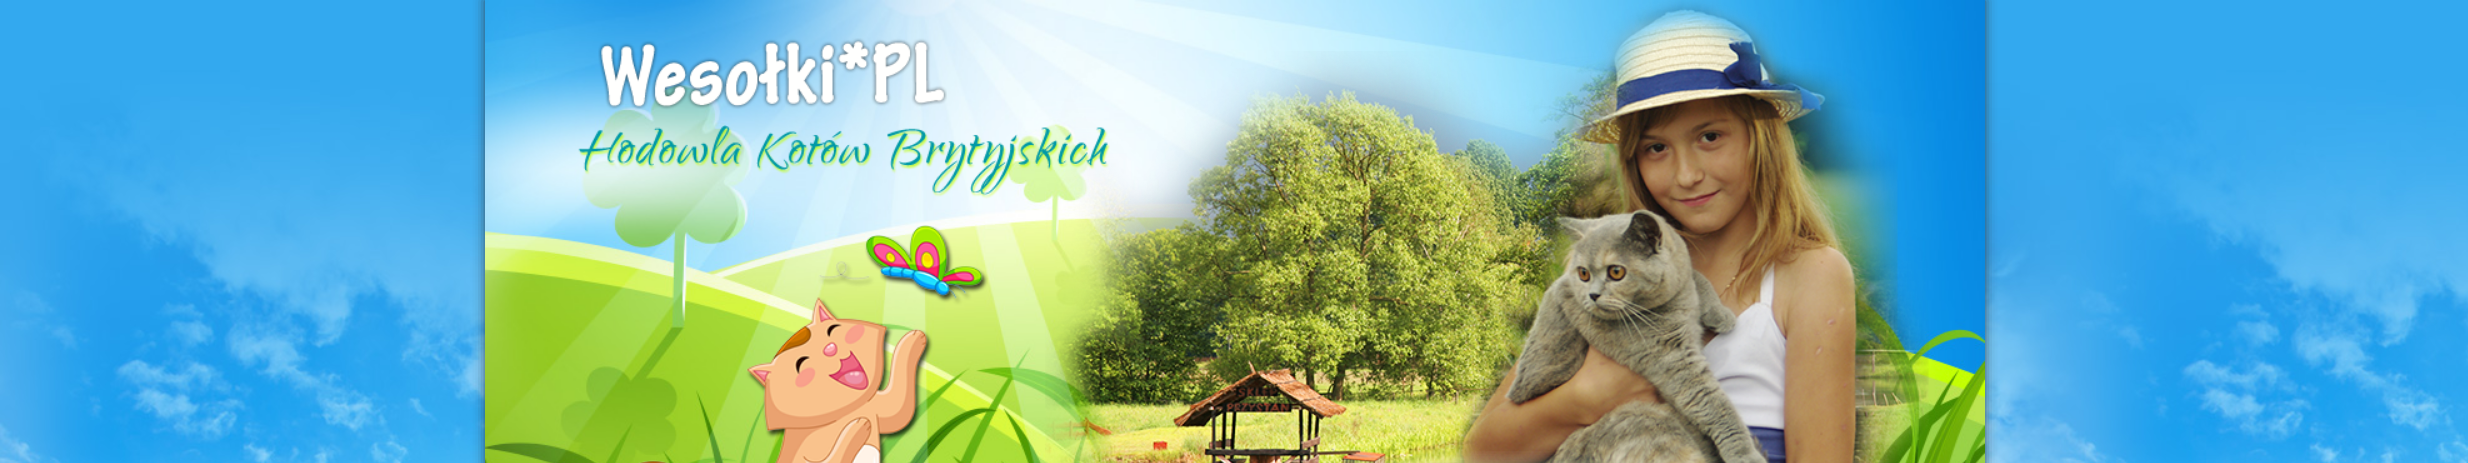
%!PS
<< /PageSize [2468 463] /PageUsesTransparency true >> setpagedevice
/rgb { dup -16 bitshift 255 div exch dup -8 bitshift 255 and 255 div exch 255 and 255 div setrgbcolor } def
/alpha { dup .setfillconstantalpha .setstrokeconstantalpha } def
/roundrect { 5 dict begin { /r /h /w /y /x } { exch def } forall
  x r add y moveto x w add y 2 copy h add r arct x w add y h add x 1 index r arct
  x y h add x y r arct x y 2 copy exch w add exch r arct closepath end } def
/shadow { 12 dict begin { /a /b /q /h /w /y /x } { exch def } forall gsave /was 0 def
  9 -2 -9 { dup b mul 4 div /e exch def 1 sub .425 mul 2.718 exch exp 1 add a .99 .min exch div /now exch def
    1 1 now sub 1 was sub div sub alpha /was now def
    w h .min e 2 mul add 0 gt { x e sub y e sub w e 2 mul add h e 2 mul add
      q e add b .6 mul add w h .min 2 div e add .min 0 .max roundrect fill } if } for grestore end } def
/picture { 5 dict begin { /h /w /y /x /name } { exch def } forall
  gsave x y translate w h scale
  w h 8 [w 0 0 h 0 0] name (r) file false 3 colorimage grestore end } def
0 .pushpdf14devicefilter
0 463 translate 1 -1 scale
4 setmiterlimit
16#FFFFFF rgb
0 0 2468 463 rectfill
(pic1.raw) 0 0 2468 463 picture
16#323232 rgb
485 0 1500 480 0 5.5 0.75 shadow
(pic2.raw) 485 0 1500 463 picture
(pic3.raw) 598 38 349 72 picture
(pic6.raw) 1045 51 884 412 picture
(pic4.raw) 1434 0 464 463 picture
(pic5.raw) 578 125 532 74 picture
(pic7.raw) 638 225 350 238 picture
(pic8.raw) 1353 451 302 12 picture
.poppdf14devicefilter showpage
